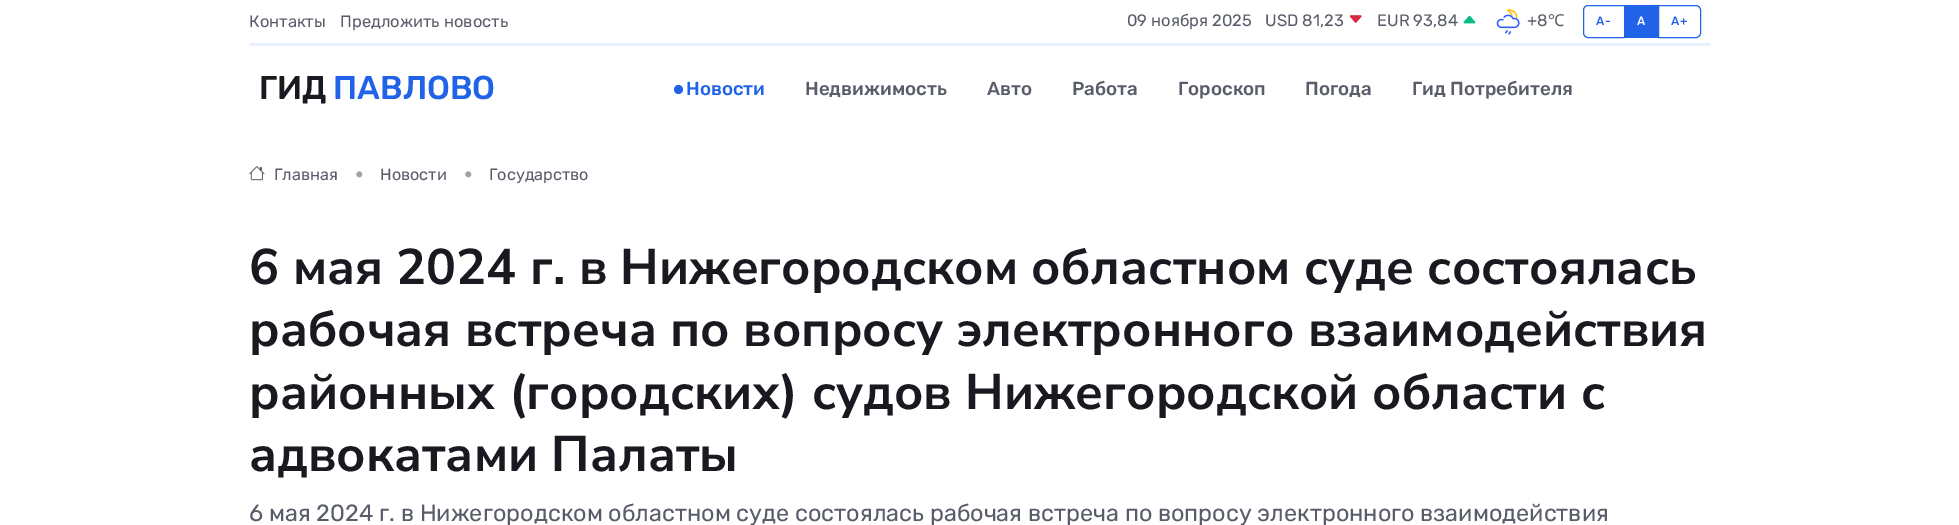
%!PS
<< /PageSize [1959 525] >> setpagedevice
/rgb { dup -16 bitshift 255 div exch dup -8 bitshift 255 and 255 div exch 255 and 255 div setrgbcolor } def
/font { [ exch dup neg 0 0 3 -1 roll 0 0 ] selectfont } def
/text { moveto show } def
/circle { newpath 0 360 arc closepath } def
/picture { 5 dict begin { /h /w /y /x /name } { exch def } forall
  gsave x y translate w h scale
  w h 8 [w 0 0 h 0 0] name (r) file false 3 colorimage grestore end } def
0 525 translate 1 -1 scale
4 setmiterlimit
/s1 { /Rubik-Regular 16.5 font 16#595D69 rgb } def
/s2 { /NotoSans-Regular 16.5 font 16#595D69 rgb } def
/s3 { /Rubik-Medium 33 font 16#191A1F rgb } def
/s4 { /Rubik-Medium 33 font 16#2163E8 rgb } def
/s5 { /Rubik-Medium 18.75 font 16#2163E8 rgb } def
/s6 { /Rubik-Medium 18.75 font 16#595D69 rgb } def
/s7 { /Rubik-Regular 16.25 font 16#595D69 rgb } def
/s8 { /Rubik-Regular 28 font 16#A1A1A8 rgb } def
/s9 { /NunitoSans-Bold 50 font 16#191A1F rgb } def
/s10 { /Rubik-Regular 23.45 font 16#595D69 rgb } def
16#FFFFFF rgb
0 0 1959 525 rectfill
s1
(Контакты) 249 27 text
(Предложить новость) 340 27 text
(09 ноября 2025) 1127 26 text
(USD 81,23) 1265 26 text
(pic1.raw) 1349 15 13 8 picture
(EUR 93,84) 1377 26 text
(pic2.raw) 1463 15 13 9 picture
(pic3.raw) 1496 9 24 26 picture
(+8) 1527 26 text
s2
(℃) 1548 26 text
16#2163E8 rgb
1588 5.5 moveto 1624.5 5.5 lineto 1624.5 37.5 lineto 1588 37.5 lineto 1585.5 37.5 1583.5 35.5 1583.5 33 curveto 1583.5 10 lineto 1583.5 7.5 1585.5 5.5 1588 5.5 curveto closepath stroke
/Rubik-Medium 12 font
1596 25 moveto 1 0 (A-) ashow
1625 5 33 33 rectfill
16#FFFFFF rgb
1637 25 moveto 1 0 (A) ashow
16#2163E8 rgb
1658.5 5.5 moveto 1696 5.5 lineto 1698.5 5.5 1700.5 7.5 1700.5 10 curveto 1700.5 33 lineto 1700.5 35.5 1698.5 37.5 1696 37.5 curveto 1658.5 37.5 lineto closepath stroke
1671 25 moveto 1 0 (A+) ashow
16#E9EFFD rgb
249 43 1462 3 rectfill
s3
(ГИД) 259 99 text
s4
(ПАВЛОВО) 333 99 text
678.5 89.5 4.5 circle fill
s5
(Новости) 686 95 text
s6
(Недвижимость) 805 95 text
(Авто) 987 95 text
(Работа) 1072 95 text
(Гороскоп) 1178 95 text
(Погода) 1305 95 text
(Гид Потребителя) 1412 95 text
(pic4.raw) 249 166 16 15 picture
s7
(Главная) 274 180 text
s8
(•) 354 183 text
s7
(Новости) 380 180 text
s8
(•) 463 183 text
s7
(Государство) 489 180 text
s9
(6 мая 2024 г. в Нижегородском областном суде состоялась) 249 284 text
(рабочая встреча по вопросу электронного взаимодействия) 249 346 text
(районных \(городских\) судов Нижегородской области с) 249 409 text
(адвокатами Палаты) 249 471 text
s10
(6 мая 2024 г. в Нижегородском областном суде состоялась рабочая встреча по вопросу электронного взаимодействия) 249 521 text
showpage
